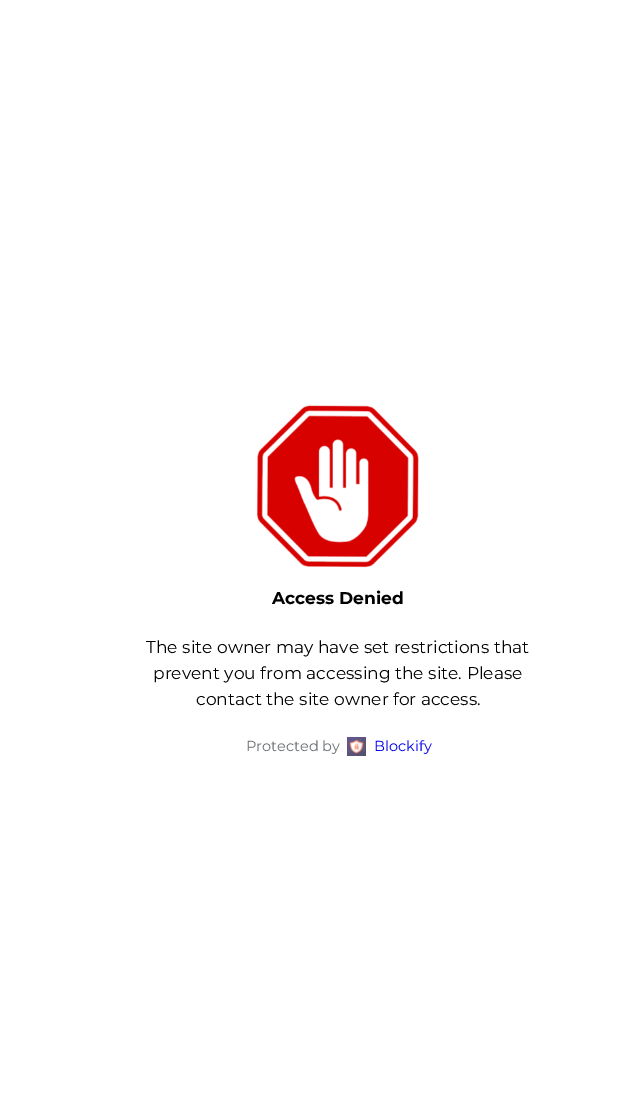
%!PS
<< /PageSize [638 1119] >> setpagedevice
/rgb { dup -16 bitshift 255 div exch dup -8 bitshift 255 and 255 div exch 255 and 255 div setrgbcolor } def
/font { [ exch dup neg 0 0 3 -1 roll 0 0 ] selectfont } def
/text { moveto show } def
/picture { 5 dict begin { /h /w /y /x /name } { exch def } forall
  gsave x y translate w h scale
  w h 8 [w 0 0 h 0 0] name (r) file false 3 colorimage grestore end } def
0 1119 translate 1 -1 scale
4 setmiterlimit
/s1 { /Montserrat-Bold 17.1 font 16#000000 rgb } def
/s2 { /Montserrat-Regular 17.1 font 16#000000 rgb } def
/s3 { /Montserrat-Regular 14.5 font 16#6D7175 rgb } def
/s4 { /Montserrat-Regular 14.5 font 16#0000EE rgb } def
16#FFFFFF rgb
0 0 638 1119 rectfill
(pic1.raw) 256 405 163 163 picture
s1
(Access Denied) 272 604 text
s2
(The site owner may have set restrictions that) 146 653 text
(prevent you from accessing the site. Please) 153 679 text
(contact the site owner for access.) 196 705 text
s3
(Protected by) 246 751 text
(pic2.raw) 347 737 19 19 picture
s4
(Blockify) 374 751 text
showpage
